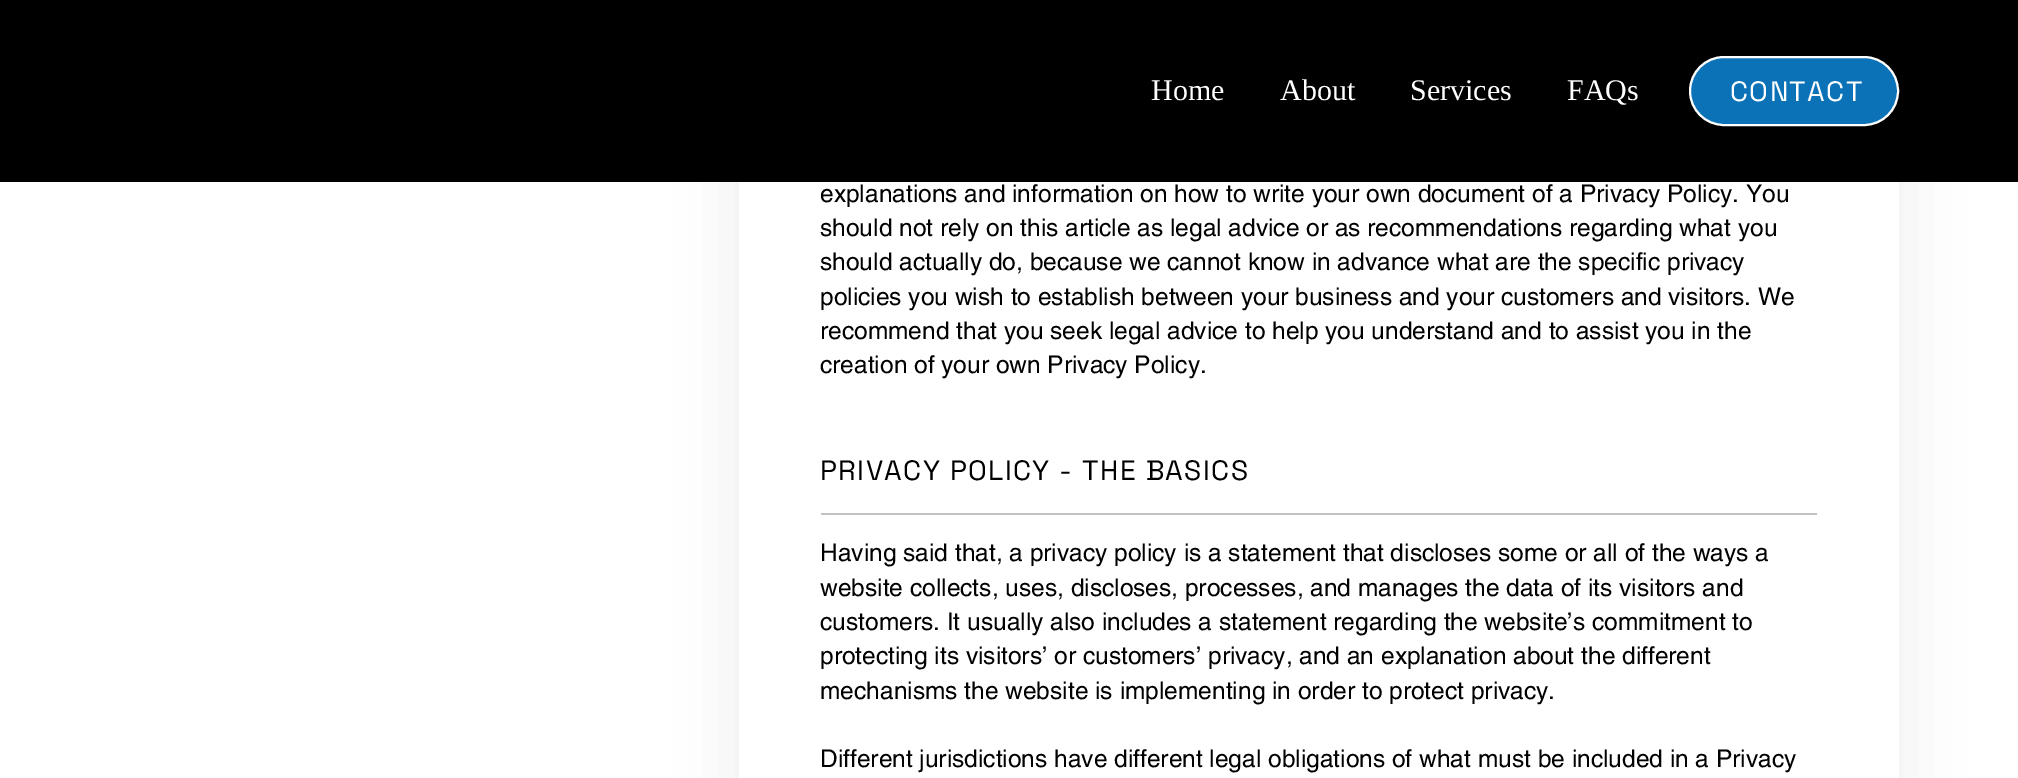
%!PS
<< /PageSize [2018 778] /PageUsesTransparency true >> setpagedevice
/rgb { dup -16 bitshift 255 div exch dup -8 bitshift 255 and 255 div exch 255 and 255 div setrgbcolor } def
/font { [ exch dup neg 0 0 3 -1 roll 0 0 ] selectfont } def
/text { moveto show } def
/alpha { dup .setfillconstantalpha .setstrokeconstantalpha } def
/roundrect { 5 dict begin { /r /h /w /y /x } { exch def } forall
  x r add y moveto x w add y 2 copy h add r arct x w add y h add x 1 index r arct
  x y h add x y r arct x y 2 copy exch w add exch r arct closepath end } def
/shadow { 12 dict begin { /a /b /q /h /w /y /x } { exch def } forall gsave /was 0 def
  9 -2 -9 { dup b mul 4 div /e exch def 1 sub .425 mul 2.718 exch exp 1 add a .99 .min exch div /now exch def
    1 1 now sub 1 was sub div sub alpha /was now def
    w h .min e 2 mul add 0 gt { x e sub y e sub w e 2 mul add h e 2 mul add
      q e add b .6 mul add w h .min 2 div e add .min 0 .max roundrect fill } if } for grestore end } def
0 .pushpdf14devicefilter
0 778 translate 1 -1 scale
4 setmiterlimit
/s1 { /LiberationSerif-Regular 30 font 16#FFFFFF rgb } def
/s2 { /helvetica-Regular 24.5 font 16#000000 rgb } def
16#FFFFFF rgb
0 0 2018 778 rectfill
16#000000 rgb
726 -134 1185 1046 39 31.5 0.05 shadow
0 0 2018 182 rectfill
s1
(Home) 1151 100 text
(About) 1280 100 text
(Services) 1410 100 text
(FAQs) 1567 100 text
16#0B72B7 rgb
1690 57 208 68 34 roundrect gsave fill grestore
16#FFFFFF rgb
2 setlinewidth
stroke
/SpaceGrotesk-Regular 28 font
1730 101 moveto 1.4 0 (CONTACT) ashow
739 182 1160 596 rectfill
s2
(explanations and information on how to write your own document of a Privacy Policy. You) 820 202 text
(should not rely on this article as legal advice or as recommendations regarding what you) 820 236 text
(should actually do, because we cannot know in advance what are the specific privacy) 820 270 text
(policies you wish to establish between your business and your customers and visitors. We) 820 305 text
(recommend that you seek legal advice to help you understand and to assist you in the) 820 339 text
(creation of your own Privacy Policy.) 820 373 text
/SpaceGrotesk-Regular 28 font
820 480 moveto 1.4 0 (PRIVACY POLICY - THE BASICS) ashow
16#C2C2C2 rgb
821 513 996 2 rectfill
s2
(Having said that, a privacy policy is a statement that discloses some or all of the ways a) 820 561 text
(website collects, uses, discloses, processes, and manages the data of its visitors and) 820 596 text
(customers. It usually also includes a statement regarding the website’s commitment to) 820 630 text
(protecting its visitors’ or customers’ privacy, and an explanation about the different) 820 664 text
(mechanisms the website is implementing in order to protect privacy.) 820 699 text
(Different jurisdictions have different legal obligations of what must be included in a Privacy) 820 767 text
.poppdf14devicefilter showpage
